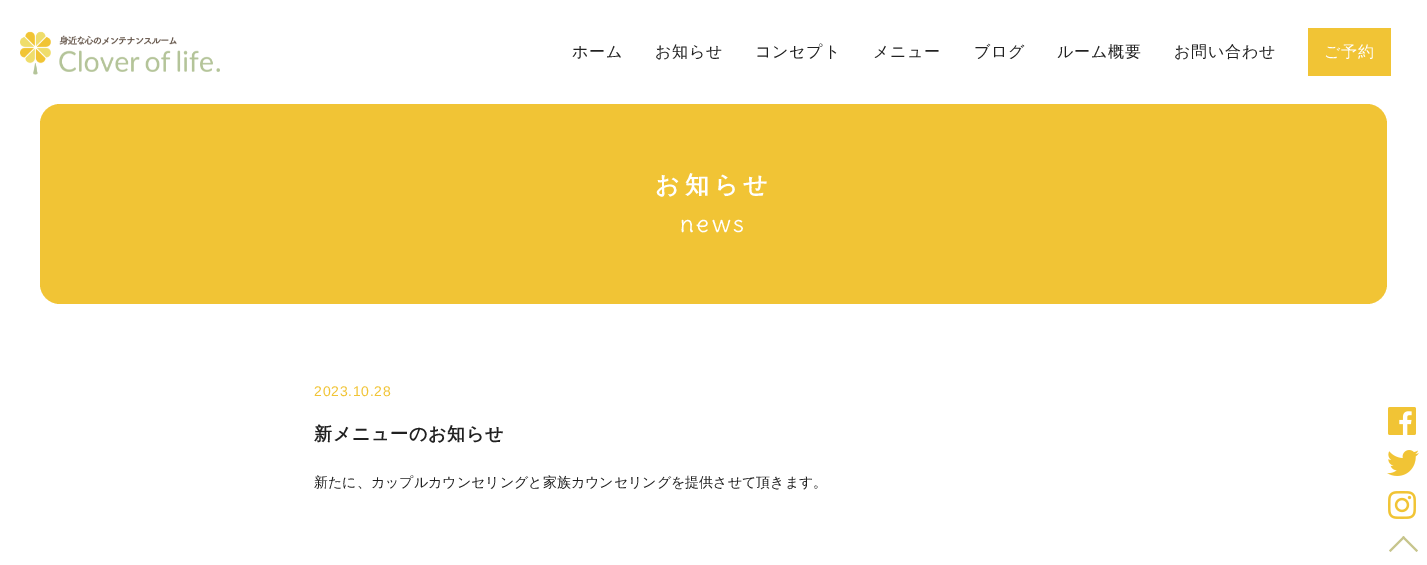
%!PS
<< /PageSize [1427 565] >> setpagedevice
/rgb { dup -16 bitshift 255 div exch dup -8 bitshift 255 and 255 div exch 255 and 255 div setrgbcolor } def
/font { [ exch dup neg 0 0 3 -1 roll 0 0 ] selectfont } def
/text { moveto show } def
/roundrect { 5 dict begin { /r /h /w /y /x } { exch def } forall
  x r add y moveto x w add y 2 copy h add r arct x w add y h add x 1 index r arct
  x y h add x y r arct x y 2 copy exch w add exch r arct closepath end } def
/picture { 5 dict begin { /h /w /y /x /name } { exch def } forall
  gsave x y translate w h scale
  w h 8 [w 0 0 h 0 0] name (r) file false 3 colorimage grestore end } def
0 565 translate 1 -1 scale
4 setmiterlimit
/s1 { /WenQuanYiZenHei-Medium 14 font 16#212121 rgb } def
16#FFFFFF rgb
0 0 1427 565 rectfill
(pic1.raw) 20 31 200 44 picture
/WenQuanYiZenHei-Medium 16 font
16#212121 rgb
572 57 moveto 0.75 0 (ホーム) ashow
655 57 moveto 0.75 0 (お知らせ) ashow
755 57 moveto 0.75 0 (コンセプト) ashow
873 57 moveto 0.75 0 (メニュー) ashow
974 57 moveto 0.75 0 (ブログ) ashow
1057 57 moveto 0.75 0 (ルーム概要) ashow
1174 57 moveto 0.75 0 (お問い合わせ) ashow
16#F1C435 rgb
1308 28 83 48 rectfill
16#FFFFFF rgb
1324 57 moveto 0.75 0 (ご予約) ashow
16#F1C435 rgb
40 104 1347 200 20 roundrect fill
/WenQuanYiZenHei-Bold 24 font
16#FFFFFF rgb
655 193 moveto 5 0 (お知らせ) ashow
/Delius-Regular 24 font
680 232 moveto 2.5 0 (news) ashow
/LiberationSans-Regular 14 font
16#F1C435 rgb
314 396 moveto 0.75 0 (2023.10.28) ashow
/WenQuanYiZenHei-Bold 18 font
16#212121 rgb
314 440 moveto 0.75 0 (新メニューのお知らせ) ashow
s1
(新たに、カップルカウンセリングと家族カウンセリングを提供させて頂きます。) 314 487 text
(pic2.raw) 1388 407 28 28 picture
(pic3.raw) 1387 450 32 26 picture
(pic4.raw) 1388 491 28 28 picture
16#C7C58C rgb
1389 550.5 moveto 1403.5 536 lineto 1405 537.5 lineto 1390.5 552 lineto closepath fill
1403.5 536 moveto 1418 550.5 lineto 1416.5 552 lineto 1402 537.5 lineto closepath fill
showpage
